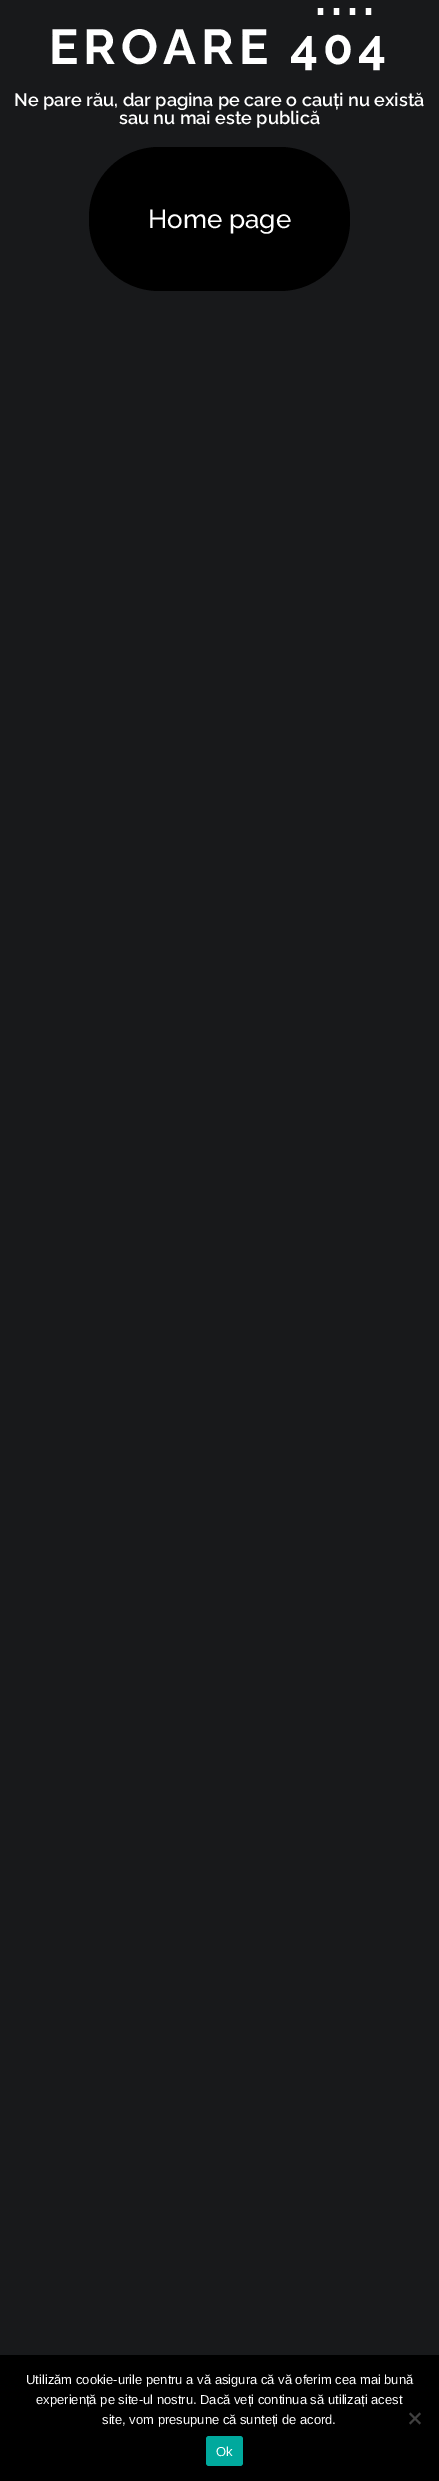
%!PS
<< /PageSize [439 2481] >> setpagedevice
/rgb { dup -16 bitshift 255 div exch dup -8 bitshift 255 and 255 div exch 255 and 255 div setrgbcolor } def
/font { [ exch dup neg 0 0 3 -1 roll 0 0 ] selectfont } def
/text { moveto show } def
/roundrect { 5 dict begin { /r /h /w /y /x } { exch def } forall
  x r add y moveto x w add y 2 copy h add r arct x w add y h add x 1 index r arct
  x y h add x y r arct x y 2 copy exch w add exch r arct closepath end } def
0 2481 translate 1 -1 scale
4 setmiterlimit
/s1 { /Raleway-SemiBold 18 font 16#FFFFFF rgb } def
/s2 { /Raleway-Medium 26 font 16#FFFFFF rgb } def
/s3 { /LiberationSans-Regular 13 font 16#FFFFFF rgb } def
16#18191B rgb
0 0 439 2481 rectfill
/Raleway-Bold 49 font
16#FFFFFF rgb
315 15 moveto 5 0 (....) ashow
49 64 moveto 5 0 (EROARE 404) ashow
s1
(Ne pare rău, dar pagina pe care o cauți nu există) 14 106 text
(sau nu mai este publică) 119 124 text
16#000000 rgb
89 147 261 144 70 roundrect fill
s2
(Home page) 148 228 text
16#000000 rgb
0 2355 439 126 rectfill
s3
(Utilizăm cookie-urile pentru a vă asigura că vă oferim cea mai bună) 26 2384 text
(experiență pe site-ul nostru. Dacă veți continua să utilizați acest) 36 2404 text
(site, vom presupune că sunteți de acord.) 102 2424 text
16#404040 rgb
419.5 2412.5 moveto 421 2414 lineto 410.5 2424.5 lineto 409 2423 lineto closepath fill
409 2414 moveto 410.5 2412.5 lineto 421 2423 lineto 419.5 2424.5 lineto closepath fill
16#00A99D rgb
206 2436 37 30 3 roundrect fill
s3
(Ok) 216 2456 text
showpage
